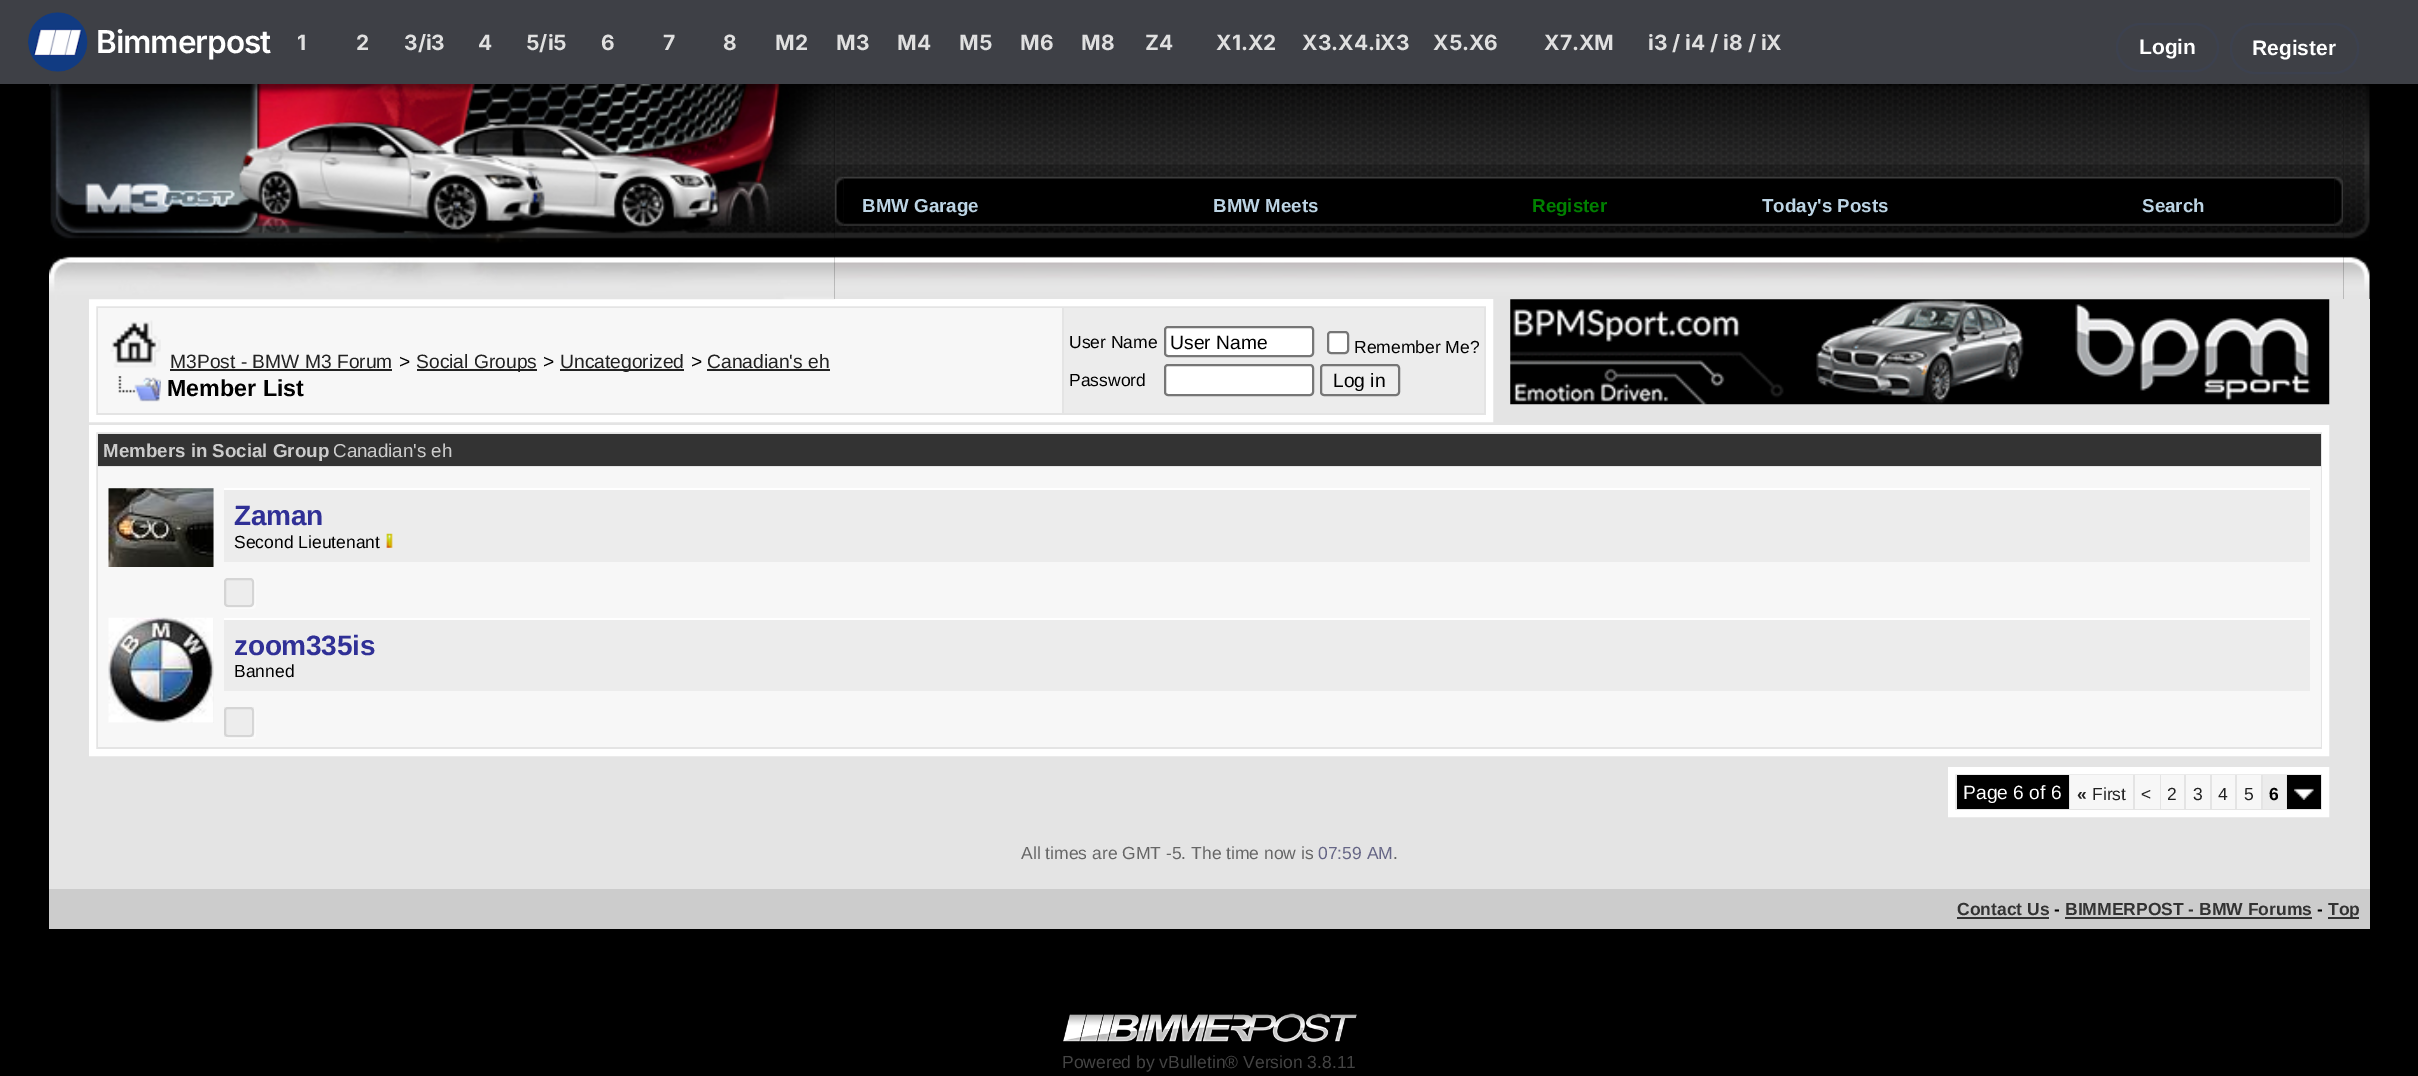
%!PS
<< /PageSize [2418 1076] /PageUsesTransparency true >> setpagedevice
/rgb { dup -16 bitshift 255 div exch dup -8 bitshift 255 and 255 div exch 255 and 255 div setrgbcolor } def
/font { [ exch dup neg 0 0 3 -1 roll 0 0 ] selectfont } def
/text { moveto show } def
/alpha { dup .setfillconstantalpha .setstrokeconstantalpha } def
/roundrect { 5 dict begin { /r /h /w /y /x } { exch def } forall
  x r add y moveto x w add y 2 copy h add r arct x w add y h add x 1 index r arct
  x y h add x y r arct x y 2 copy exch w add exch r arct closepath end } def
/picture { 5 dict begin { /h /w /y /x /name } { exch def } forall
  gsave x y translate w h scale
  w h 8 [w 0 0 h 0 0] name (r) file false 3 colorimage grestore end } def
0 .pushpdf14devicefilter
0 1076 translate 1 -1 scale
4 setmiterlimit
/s1 { /Inter-Bold 21 font 16#E0E0E0 rgb } def
/s2 { /LiberationSans-Bold 21 font 16#FFFFFF rgb } def
/s3 { /LiberationSans-Bold 18.75 font 16#BCD4E4 rgb } def
/s4 { /LiberationSans-Bold 18.75 font 16#008000 rgb } def
/s5 { /LiberationSans-Regular 19.25 font 16#222222 rgb } def
/s6 { /LiberationSans-Regular 19.25 font 16#000000 rgb } def
/s7 { /LiberationSans-Bold 23.25 font 16#000000 rgb } def
/s8 { /LiberationSans-Regular 17.5 font 16#000000 rgb } def
/s9 { /LiberationSans-Bold 18.75 font 16#CCCCCC rgb } def
/s10 { /LiberationSans-Regular 18.75 font 16#CCCCCC rgb } def
/s11 { /LiberationSans-Regular 19.25 font 16#FFFFFF rgb } def
/s12 { /LiberationSans-Bold 17.5 font 16#222222 rgb } def
/s13 { /LiberationSans-Regular 17.5 font 16#222222 rgb } def
/s14 { /LiberationSans-Bold 17.5 font 16#000000 rgb } def
/s15 { /LiberationSans-Regular 17.5 font 16#666666 rgb } def
/s16 { /LiberationSans-Regular 17.5 font 16#666686 rgb } def
/s17 { /LiberationSans-Bold 17.5 font 16#333333 rgb } def
/s18 { /LiberationSans-Regular 17.5 font 16#444444 rgb } def
16#000000 rgb
0 0 2418 1076 rectfill
16#3E4046 rgb
0 0 2418 84 rectfill
(pic1.raw) 28 12 60 60 picture
/Inter-SemiBold 31.5 font
16#FFFFFF rgb
96 53 moveto -1 0 (Bimmerpost) ashow
s1
(1) 297 50 text
(2) 356 50 text
(3/i3) 404 50 text
(4) 478 50 text
(5/i5) 526 50 text
(6) 601 50 text
(7) 663 50 text
(8) 723 50 text
(M2) 775 50 text
(M3) 836 50 text
(M4) 897 50 text
(M5) 959 50 text
(M6) 1020 50 text
(M8) 1081 50 text
(Z4) 1145 50 text
(X1.X2) 1216 50 text
(X3.X4.iX3) 1302 50 text
(X5.X6) 1433 50 text
(X7.XM) 1544 50 text
(i3 / i4 / i8 / iX) 1648 50 text
16#3C414F rgb
2 setlinewidth
2117 24 101 47 23.5 roundrect stroke
s2
(Login) 2139 54 text
16#3C414F rgb
2231 24 127 49 24 roundrect stroke
s2
(Register) 2252 55 text
(pic3.raw) 834 84 1510 215 picture
16#E4E4E4 rgb
49 299 2321 590 rectfill
16#FFFFFF rgb
7 setlinewidth
92.5 302.5 1397 116 rectstroke
(pic2.raw) 49 84 786 216 picture
(pic5.raw) 843 176 1492 50 picture
(pic4.raw) 834 176 10 50 picture
s3
(BMW Garage) 862 212 text
(BMW Meets) 1213 212 text
s4
(Register) 1532 212 text
s3
(Today's Posts) 1762 212 text
(Search) 2142 212 text
(pic6.raw) 2334 176 10 50 picture
(pic7.raw) 2343 84 27 215 picture
16#F7F7F7 rgb
98 308 964 105 rectfill
(pic8.raw) 110 320 51 48 picture
s5
(M3Post - BMW M3 Forum) 170 368 text
170 369 222 2 rectfill
s6
(>) 399 368 text
16#222222 rgb
417 369 120 2 rectfill
(Social Groups) 416 368 text
s6
(>) 543 368 text
16#222222 rgb
560 369 124 2 rectfill
(Uncategorized) 560 368 text
s6
(>) 691 368 text
s5
(Canadian's eh) 707 368 text
707 369 123 2 rectfill
(pic9.raw) 118 376 43 26 picture
s7
(Member List) 167 396 text
16#ECECEC rgb
1064 308 420 105 rectfill
s8
(User Name) 1069 348 text
16#FFFFFF rgb
1165 327 148 29 3 roundrect gsave fill grestore
16#767676 rgb
2 setlinewidth
stroke
s6
(User Name) 1170 349 text
16#FFFFFF rgb
1328 332 20 21 3 roundrect gsave fill grestore
16#767676 rgb
stroke
s8
(Remember Me?) 1354 353 text
(Password) 1069 386 text
16#FFFFFF rgb
1165 365 148 30 3 roundrect gsave fill grestore
16#767676 rgb
stroke
16#EFEFEF rgb
1321 365 78 30 3 roundrect gsave fill grestore
16#767676 rgb
stroke
s6
(Log in) 1333 387 text
(pic10.raw) 1510 299 820 106 picture
16#FFFFFF rgb
7 setlinewidth
92.5 428.5 2233 324 rectstroke
16#333333 rgb
98 434 2223 32 rectfill
s9
(Members in Social Group) 103 457 text
s10
(Canadian's eh) 333 457 text
16#F7F7F7 rgb
98 467 2223 280 rectfill
16#ECECEC rgb
109 488 105 79 rectfill
(pic11.raw) 108 488 106 79 picture
16#FFFFFF rgb
224 488 2086 2 rectfill
16#ECECEC rgb
224 490 2086 72 rectfill
/LiberationSans-Bold 28 font
16#303096 rgb
234 525 moveto -0.25 0 (Zaman) ashow
s8
(Second Lieutenant) 234 548 text
(pic12.raw) 386 533 7 15 picture
16#FBFBFB rgb
226.5 607 moveto 227.5 608.5 228.5 609 230 609 curveto 252 609 lineto 254 609 256 607 256 605 curveto 256 583 lineto 256 581 255 579.5 253.5 579 curveto 254 581 254 583.5 254 585 curveto 254 600 lineto 254 602.5 254.5 606.5 251 607 curveto closepath fill
16#EDEDED rgb
224 578 30 29 4 roundrect fill
0.1 alpha
16#000000 rgb
2 setlinewidth
225 579 28 27 3 roundrect stroke
1 alpha
16#ECECEC rgb
109 618 105 105 rectfill
(pic13.raw) 108 617 106 106 picture
16#FFFFFF rgb
224 618 2086 2 rectfill
16#ECECEC rgb
224 620 2086 71 rectfill
/LiberationSans-Bold 28 font
16#303096 rgb
234 655 moveto -0.25 0 (zoom335is) ashow
s8
(Banned) 234 677 text
16#FBFBFB rgb
226.5 736.5 moveto 227 738 228.5 739 230 739 curveto 252 739 lineto 254 739 256 737 256 735 curveto 256 713 lineto 256 711.5 255 710 253.5 709.5 curveto 253.5 734 lineto 253 737.5 249 737 246.5 737 curveto closepath fill
0.04 alpha
16#000000 rgb
224 707 30 30 rectfill
0.1 alpha
225 708 28 28 3 roundrect stroke
1 alpha
16#FFFFFF rgb
7 setlinewidth
1951.5 770.5 374 43 rectstroke
16#000000 rgb
1957 775 112 34 rectfill
s11
(Page 6 of 6) 1963 799 text
16#F7F7F7 rgb
2070 775 63 34 rectfill
s12
(«) 2077 800 text
s13
(First) 2092 800 text
16#F7F7F7 rgb
2135 775 25 34 rectfill
s13
(<) 2141 800 text
16#F7F7F7 rgb
2161 775 23 34 rectfill
s13
(2) 2167 800 text
16#F7F7F7 rgb
2186 775 24 34 rectfill
s13
(3) 2193 800 text
16#F7F7F7 rgb
2212 775 23 34 rectfill
s13
(4) 2218 800 text
16#F7F7F7 rgb
2237 775 24 34 rectfill
s13
(5) 2244 800 text
16#ECECEC rgb
2263 775 23 34 rectfill
s14
(6) 2269 800 text
2287 775 34 34 rectfill
(pic14.raw) 2294 788 20 12 picture
s15
(All times are GMT -5. The time now is) 1021 859 text
s16
(07:59 AM) 1318 859 text
s15
(.) 1393 859 text
16#CCCCCC rgb
49 889 2321 40 rectfill
s17
(Contact Us) 1957 915 text
1957 917 92 2 rectfill
s14
(-) 2054 915 text
s17
(BIMMERPOST - BMW Forums) 2065 915 text
2065 917 247 2 rectfill
s14
(-) 2317 915 text
16#333333 rgb
2328 917 31 2 rectfill
(Top) 2328 915 text
(pic15.raw) 1063 1013 294 30 picture
s18
(Powered by vBulletin® Version 3.8.11) 1062 1068 text
.poppdf14devicefilter showpage
